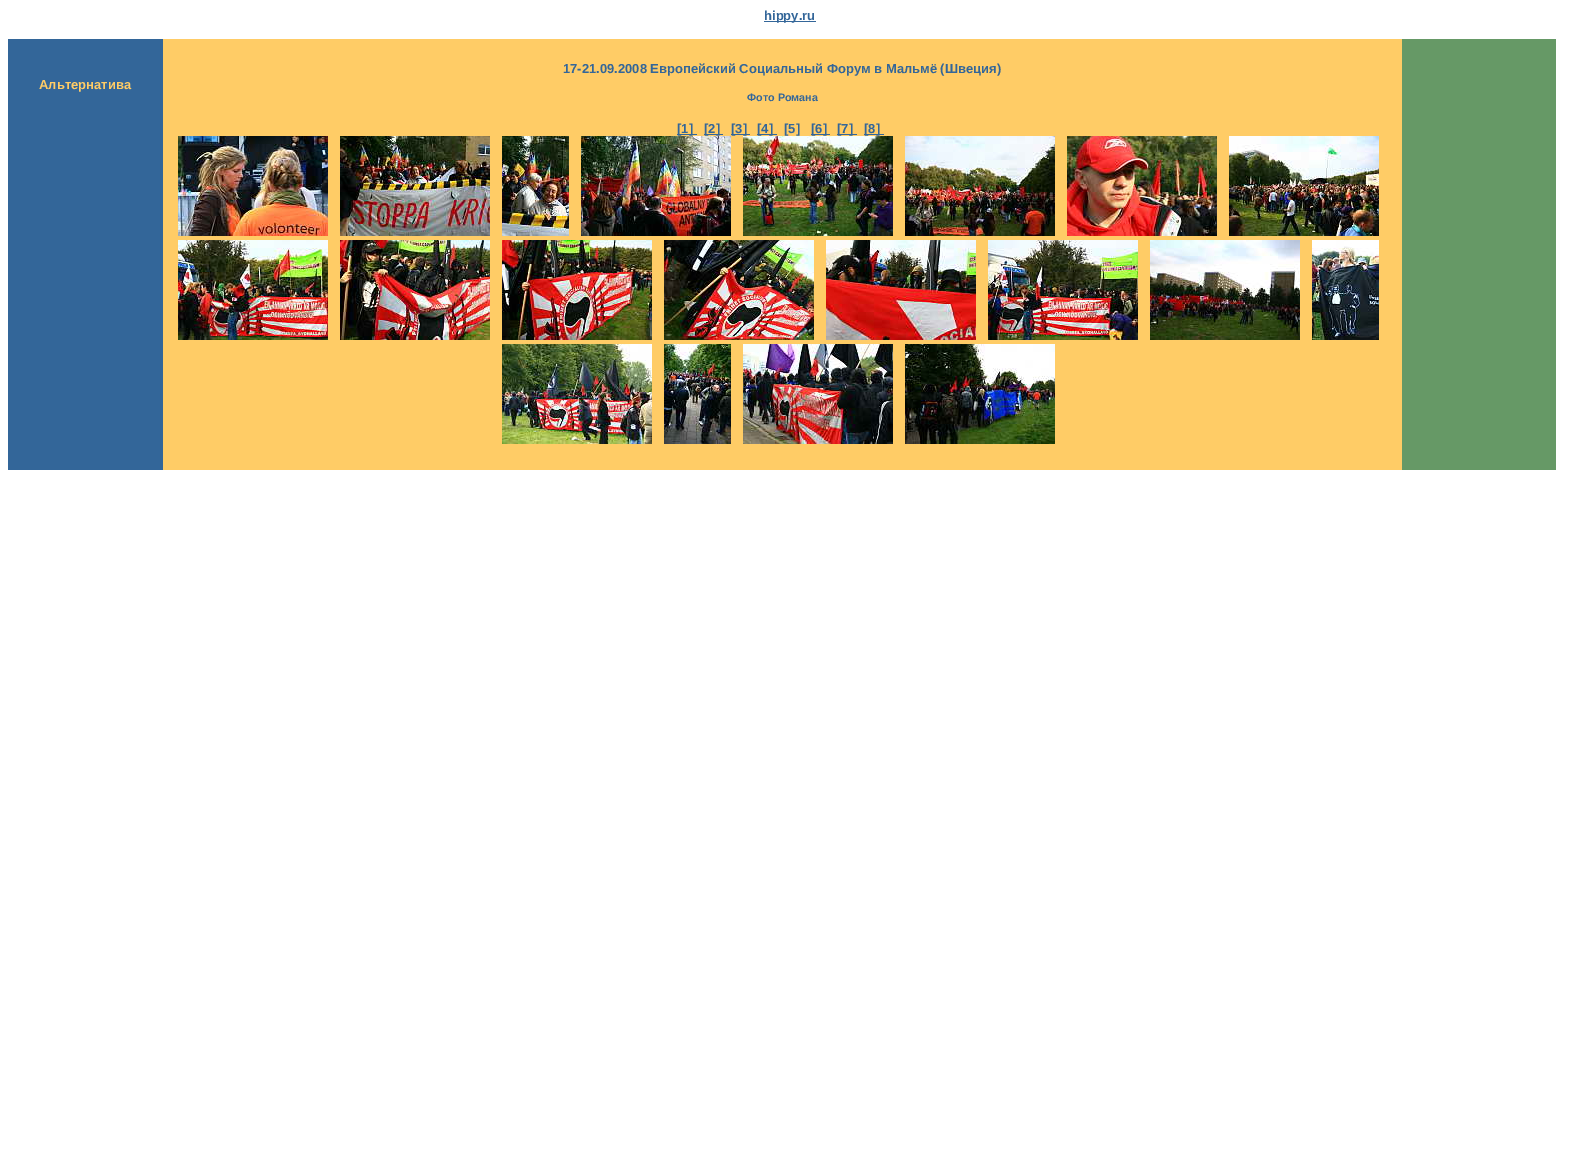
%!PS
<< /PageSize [1580 1158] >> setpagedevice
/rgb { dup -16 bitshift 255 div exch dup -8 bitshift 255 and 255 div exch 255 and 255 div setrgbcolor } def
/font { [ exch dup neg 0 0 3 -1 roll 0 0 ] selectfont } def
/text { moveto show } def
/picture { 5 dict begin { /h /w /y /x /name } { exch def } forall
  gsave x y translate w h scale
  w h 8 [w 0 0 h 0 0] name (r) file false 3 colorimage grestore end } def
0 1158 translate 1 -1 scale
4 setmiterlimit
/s1 { /LiberationSans-Bold 13 font 16#336699 rgb } def
/s2 { /LiberationSans-Bold 13 font 16#FFCC66 rgb } def
/s3 { /LiberationSans-Bold 10.75 font 16#336699 rgb } def
16#FFFFFF rgb
0 0 1580 1158 rectfill
16#336699 rgb
764 21 52 1 rectfill
s1
(hippy.ru) 764 20 text
8 39 155 431 rectfill
s2
(Альтернатива) 39 89 text
163 39 1239 431 rectfill
s1
(17-21.09.2008 Европейский Социальный Форум в Мальмё \(Швеция\)) 563 73 text
s3
(Фото Романа) 747 101 text
677 134 20 1 rectfill
s1
([1]) 677 133 text
704 134 19 1 rectfill
([2]) 704 133 text
731 134 19 1 rectfill
([3]) 731 133 text
757 134 20 1 rectfill
([4]) 757 133 text
([5]) 784 133 text
811 134 19 1 rectfill
([6]) 811 133 text
837 134 20 1 rectfill
([7]) 837 133 text
864 134 20 1 rectfill
([8]) 864 133 text
(pic1.raw) 178 136 150 100 picture
(pic2.raw) 340 136 150 100 picture
(pic3.raw) 502 136 67 100 picture
(pic4.raw) 581 136 150 100 picture
(pic5.raw) 743 136 150 100 picture
(pic6.raw) 905 136 150 100 picture
(pic7.raw) 1067 136 150 100 picture
(pic8.raw) 1229 136 150 100 picture
(pic9.raw) 178 240 150 100 picture
(pic10.raw) 340 240 150 100 picture
(pic11.raw) 502 240 150 100 picture
(pic12.raw) 664 240 150 100 picture
(pic13.raw) 826 240 150 100 picture
(pic14.raw) 988 240 150 100 picture
(pic15.raw) 1150 240 150 100 picture
(pic16.raw) 1312 240 67 100 picture
(pic17.raw) 502 344 150 100 picture
(pic18.raw) 664 344 67 100 picture
(pic19.raw) 743 344 150 100 picture
(pic20.raw) 905 344 150 100 picture
16#669966 rgb
1402 39 154 431 rectfill
showpage
